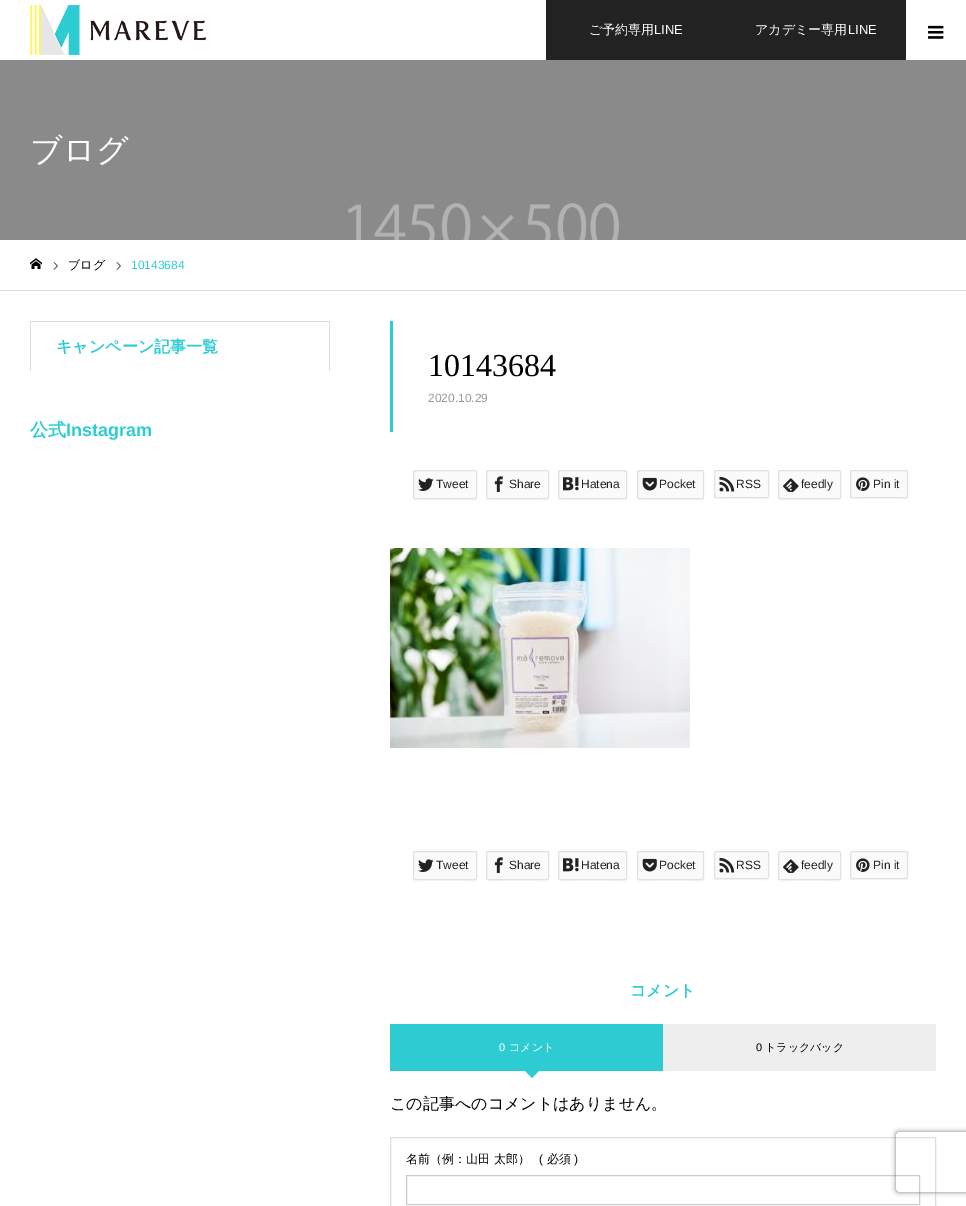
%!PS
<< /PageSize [966 1206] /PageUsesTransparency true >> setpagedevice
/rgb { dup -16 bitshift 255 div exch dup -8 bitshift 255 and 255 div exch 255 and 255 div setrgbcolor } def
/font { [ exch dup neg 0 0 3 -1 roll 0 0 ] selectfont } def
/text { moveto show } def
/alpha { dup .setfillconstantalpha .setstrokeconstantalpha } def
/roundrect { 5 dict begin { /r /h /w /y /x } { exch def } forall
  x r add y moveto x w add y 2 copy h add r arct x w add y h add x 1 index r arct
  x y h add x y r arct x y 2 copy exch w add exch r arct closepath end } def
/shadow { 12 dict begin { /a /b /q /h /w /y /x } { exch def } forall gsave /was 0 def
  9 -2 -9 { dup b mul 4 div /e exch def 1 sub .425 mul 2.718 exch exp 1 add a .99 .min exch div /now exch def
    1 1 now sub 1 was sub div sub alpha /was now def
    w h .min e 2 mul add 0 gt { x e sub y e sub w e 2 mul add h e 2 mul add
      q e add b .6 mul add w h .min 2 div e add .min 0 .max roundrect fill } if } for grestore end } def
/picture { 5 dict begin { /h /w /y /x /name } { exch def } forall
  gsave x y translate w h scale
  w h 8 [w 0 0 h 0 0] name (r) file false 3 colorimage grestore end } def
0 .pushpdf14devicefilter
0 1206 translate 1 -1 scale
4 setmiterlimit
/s1 { /WenQuanYiZenHei-Medium 13 font 16#FFFFFF rgb } def
/s2 { /LiberationSans-Regular 13 font 16#FFFFFF rgb } def
/s3 { /WenQuanYiZenHei-Medium 32 font 16#FFFFFF rgb } def
/s4 { /WenQuanYiZenHei-Medium 12 font 16#000000 rgb } def
/s5 { /LiberationSans-Regular 12 font 16#2DCCD3 rgb } def
/s6 { /WenQuanYiZenHei-Bold 16 font 16#2DCCD3 rgb } def
/s7 { /WenQuanYiZenHei-Bold 18 font 16#2DCCD3 rgb } def
/s8 { /LiberationSans-Bold 18 font 16#2DCCD3 rgb } def
/s9 { /LiberationSerif-Regular 32 font 16#000000 rgb } def
/s10 { /LiberationSans-Regular 12 font 16#999999 rgb } def
/s11 { /LiberationSans-Regular 12 font 16#222222 rgb } def
/s12 { /LiberationSans-Regular 11 font 16#FFFFFF rgb } def
/s13 { /WenQuanYiZenHei-Medium 11 font 16#FFFFFF rgb } def
/s14 { /LiberationSans-Regular 11 font 16#000000 rgb } def
/s15 { /WenQuanYiZenHei-Medium 11 font 16#000000 rgb } def
/s16 { /WenQuanYiZenHei-Medium 16 font 16#000000 rgb } def
/s17 { /LiberationSans-Regular 12 font 16#000000 rgb } def
16#FFFFFF rgb
0 0 966 1206 rectfill
(pic1.raw) 30 5 176 50 picture
16#222222 rgb
546 0 360 60 rectfill
s1
(ご予約専用) 589 34 text
s2
(LINE) 654 34 text
s1
(アカデミー専用) 755 34 text
s2
(LINE) 848 34 text
(pic2.raw) 928 25 16 14 picture
(pic3.raw) 0 60 966 180 picture
s3
(ブログ) 30 161 text
16#DDDDDD rgb
0 290 966 1 rectfill
(pic4.raw) 30 258 12 11 picture
(pic5.raw) 53 262 5 8 picture
s4
(ブログ) 68 269 text
(pic5.raw) 116 262 5 8 picture
s5
(10143684) 131 269 text
16#DDDDDD rgb
30 321 300 1 rectfill
329 321 1 50 rectfill
30 321 1 50 rectfill
s6
(キャンペーン記事一覧) 56 352 text
s7
(公式) 30 436 text
s8
(Instagram) 66 436 text
390 321 3 111 rectfill
s9
(10143684) 428 376 text
s10
(2020.10.29) 428 402 text
16#F7F7F7 rgb
413 497 moveto 413 503 421 500 425 500 curveto 465 500 lineto 469 500 477 503 477 497 curveto 476 499 lineto 425 499 lineto 421 499 413 501 413 497 curveto closepath fill
16#FAFAFA rgb
413.5 470.5 63 28 1.5 roundrect gsave fill grestore
16#E1E1E1 rgb
stroke
(pic6.raw) 418 478 16 13 picture
s11
(Tweet) 436 488 text
16#F7F7F7 rgb
486 497 moveto 486 503 494 500 498 500 curveto 537 500 lineto 541 500 549 503 549 497 curveto 549 501 541 499 537 499 curveto 487 499 lineto closepath fill
16#FAFAFA rgb
486.5 470.5 62 28 1.5 roundrect gsave fill grestore
16#E1E1E1 rgb
stroke
(pic7.raw) 494 476 9 16 picture
s11
(Share) 509 488 text
16#F7F7F7 rgb
558 497 moveto 558 503 567 500 571 500 curveto 614 500 lineto 618 500 627 503 627 497 curveto 627 498 626 499 625 499 curveto 559 499 lineto closepath fill
16#FAFAFA rgb
558.5 470.5 68 28 1.5 roundrect gsave fill grestore
16#E1E1E1 rgb
stroke
(pic8.raw) 563 477 16 14 picture
s11
(Hatena) 581 488 text
16#F7F7F7 rgb
637 497 moveto 637 503 646 500 650 500 curveto 692 500 lineto 695 500 704 503 704 497 curveto 703 499 lineto 639 499 lineto 637 498 lineto closepath fill
16#FAFAFA rgb
637.5 470.5 66 28 1.5 roundrect gsave fill grestore
16#E1E1E1 rgb
stroke
(pic9.raw) 642 477 15 14 picture
s11
(Pocket) 659 488 text
16#F7F7F7 rgb
714 496 moveto 714 501 721 499 724 499 curveto 758 499 lineto 762 499 769 501 769 496 curveto 768 498 lineto 715 498 lineto closepath fill
16#FAFAFA rgb
714.5 470.5 54 27 1.5 roundrect gsave fill grestore
16#E1E1E1 rgb
stroke
(pic10.raw) 719 476 16 16 picture
s11
(RSS) 736 488 text
16#F7F7F7 rgb
778 497 moveto 778 503 786 500 790 500 curveto 829 500 lineto 833 500 841 503 841 497 curveto 840 499 lineto 790 499 lineto 786 499 778 501 778 497 curveto closepath fill
16#FAFAFA rgb
778.5 470.5 62 28 1.5 roundrect gsave fill grestore
16#E1E1E1 rgb
stroke
(pic11.raw) 783 478 16 14 picture
s11
(feedly) 801 488 text
16#F7F7F7 rgb
850 496 moveto 850 501 857 499 861 499 curveto 897 499 lineto 901 499 908 501 908 496 curveto 907 498 lineto 851 498 lineto closepath fill
16#FAFAFA rgb
850.5 470.5 57 27 1.5 roundrect gsave fill grestore
16#E1E1E1 rgb
stroke
(pic12.raw) 856 477 14 14 picture
s11
(Pin it) 873 488 text
(pic13.raw) 390 548 300 200 picture
16#F7F7F7 rgb
413 878 moveto 413 884 421 881 425 881 curveto 465 881 lineto 469 881 477 884 477 878 curveto 476 880 lineto 425 880 lineto 421 880 413 882 413 878 curveto closepath fill
16#FAFAFA rgb
413.5 851.5 63 28 1.5 roundrect gsave fill grestore
16#E1E1E1 rgb
stroke
(pic6.raw) 418 859 16 13 picture
s11
(Tweet) 436 869 text
16#F7F7F7 rgb
486 878 moveto 486 884 494 881 498 881 curveto 537 881 lineto 541 881 549 884 549 878 curveto 549 882 541 880 537 880 curveto 487 880 lineto closepath fill
16#FAFAFA rgb
486.5 851.5 62 28 1.5 roundrect gsave fill grestore
16#E1E1E1 rgb
stroke
(pic7.raw) 494 857 9 16 picture
s11
(Share) 509 869 text
16#F7F7F7 rgb
558 878 moveto 558 884 567 881 571 881 curveto 614 881 lineto 618 881 627 884 627 878 curveto 627 879 626 880 625 880 curveto 559 880 lineto closepath fill
16#FAFAFA rgb
558.5 851.5 68 28 1.5 roundrect gsave fill grestore
16#E1E1E1 rgb
stroke
(pic8.raw) 563 858 16 14 picture
s11
(Hatena) 581 869 text
16#F7F7F7 rgb
637 878 moveto 637 884 646 881 650 881 curveto 692 881 lineto 695 881 704 884 704 878 curveto 703 880 lineto 639 880 lineto 637 879 lineto closepath fill
16#FAFAFA rgb
637.5 851.5 66 28 1.5 roundrect gsave fill grestore
16#E1E1E1 rgb
stroke
(pic9.raw) 642 858 15 14 picture
s11
(Pocket) 659 869 text
16#F7F7F7 rgb
714 877 moveto 714 882 721 880 724 880 curveto 758 880 lineto 762 880 769 882 769 877 curveto 768 879 lineto 715 879 lineto closepath fill
16#FAFAFA rgb
714.5 851.5 54 27 1.5 roundrect gsave fill grestore
16#E1E1E1 rgb
stroke
(pic10.raw) 719 857 16 16 picture
s11
(RSS) 736 869 text
16#F7F7F7 rgb
778 878 moveto 778 884 786 881 790 881 curveto 829 881 lineto 833 881 841 884 841 878 curveto 840 880 lineto 790 880 lineto 786 880 778 882 778 878 curveto closepath fill
16#FAFAFA rgb
778.5 851.5 62 28 1.5 roundrect gsave fill grestore
16#E1E1E1 rgb
stroke
(pic11.raw) 783 859 16 14 picture
s11
(feedly) 801 869 text
16#F7F7F7 rgb
850 877 moveto 850 882 857 880 861 880 curveto 897 880 lineto 901 880 908 882 908 877 curveto 907 879 lineto 851 879 lineto closepath fill
16#FAFAFA rgb
850.5 851.5 57 27 1.5 roundrect gsave fill grestore
16#E1E1E1 rgb
stroke
(pic12.raw) 856 858 14 14 picture
s11
(Pin it) 873 869 text
s6
(コメント) 630 996 text
390 1024 273 47 rectfill
s12
(0) 499 1051 text
s13
(コメント) 509 1051 text
16#2DCCD3 rgb
522 1068 moveto 542 1068 lineto 532 1078 lineto closepath fill
16#EEEEEE rgb
663 1024 273 47 rectfill
s14
(0) 756 1051 text
s15
(トラックバック) 765 1051 text
s16
(この記事へのコメントはありません。) 390 1109 text
16#DDDDDD rgb
390.5 1137.5 545 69 rectstroke
s4
(名前（例：山田 太郎）) 406 1163 text
s17
(\() 539 1163 text
s4
(必須) 547 1163 text
s17
(\)) 574 1163 text
16#CCCCCC rgb
406.5 1175.5 513 29 rectstroke
gsave
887 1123 moveto 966 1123 lineto 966 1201 lineto 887 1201 lineto closepath 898 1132 moveto 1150 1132 lineto 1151 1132 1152 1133 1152 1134 curveto 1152 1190 lineto 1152 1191 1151 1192 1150 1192 curveto 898 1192 lineto 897 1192 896 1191 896 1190 curveto 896 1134 lineto 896 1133 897 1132 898 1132 curveto closepath eoclip newpath
16#808080 rgb
896 1132 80 60 2 2.5 1 shadow
grestore
.poppdf14devicefilter showpage
